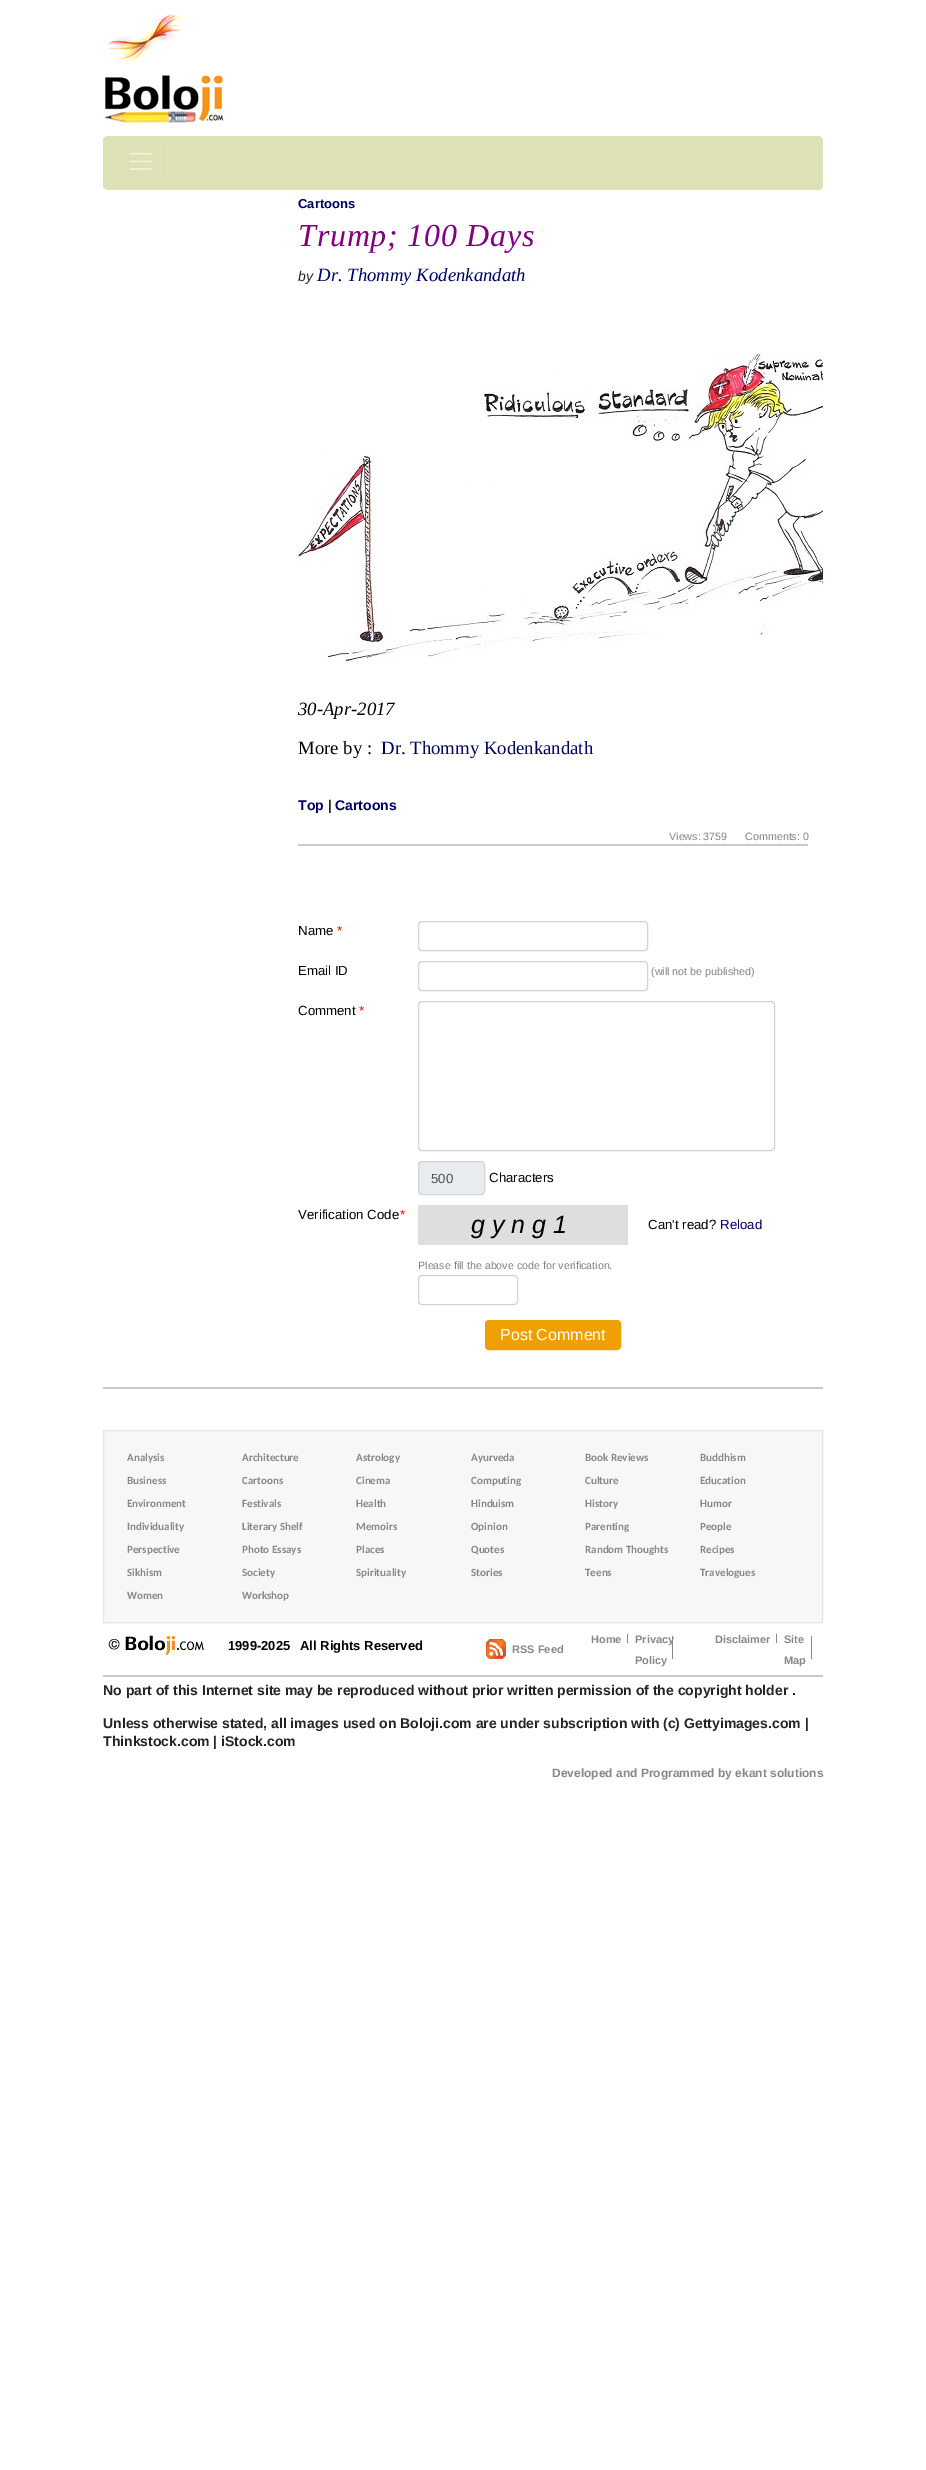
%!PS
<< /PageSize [926 2470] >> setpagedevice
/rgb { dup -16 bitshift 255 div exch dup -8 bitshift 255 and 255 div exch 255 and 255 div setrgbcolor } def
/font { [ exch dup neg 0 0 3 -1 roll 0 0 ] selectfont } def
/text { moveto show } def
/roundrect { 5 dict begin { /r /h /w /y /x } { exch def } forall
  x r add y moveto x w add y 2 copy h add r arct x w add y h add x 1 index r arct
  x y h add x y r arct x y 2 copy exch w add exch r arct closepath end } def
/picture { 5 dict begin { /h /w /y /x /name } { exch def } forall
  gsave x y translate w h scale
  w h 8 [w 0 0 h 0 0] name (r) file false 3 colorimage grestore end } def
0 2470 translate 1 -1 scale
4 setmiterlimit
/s1 { /LiberationSans-Bold 13 font 16#000066 rgb } def
/s2 { /LiberationSans-Italic 14 font 16#212529 rgb } def
/s3 { /LiberationSerif-Italic 18.75 font 16#000066 rgb } def
/s4 { /LiberationSerif-Italic 18.75 font 16#000000 rgb } def
/s5 { /LiberationSerif-Regular 18.75 font 16#000000 rgb } def
/s6 { /LiberationSerif-Regular 18.75 font 16#000066 rgb } def
/s7 { /LiberationSans-Bold 14 font 16#000066 rgb } def
/s8 { /LiberationSans-Bold 14 font 16#212529 rgb } def
/s9 { /LiberationSans-Regular 10.7 font 16#838282 rgb } def
/s10 { /LiberationSans-Regular 13.25 font 16#000000 rgb } def
/s11 { /LiberationSans-Regular 13.25 font 16#FF0000 rgb } def
/s12 { /LiberationSans-Regular 13.25 font 16#495057 rgb } def
/s13 { /LiberationSans-Regular 13.25 font 16#000066 rgb } def
/s14 { /LiberationSans-Regular 16 font 16#FFFFFF rgb } def
/s15 { /Carlito-Bold 11 font 16#888888 rgb } def
/s16 { /LiberationSans-Bold 13 font 16#000000 rgb } def
/s17 { /LiberationSans-Bold 11 font 16#888888 rgb } def
/s18 { /LiberationSans-Bold 12 font 16#888888 rgb } def
16#FFFFFF rgb
0 0 926 2470 rectfill
(pic1.raw) 104 14 120 109 picture
16#DEE0B5 rgb
103 136 720 54 5 roundrect fill
16#E1E3BC rgb
113.5 142.5 54 38 3.5 roundrect stroke
(pic2.raw) 129 152 23 18 picture
s1
(Cartoons) 298 208 text
/LiberationSerif-Italic 32 font
16#800080 rgb
298 246 moveto 0.75 0 (Trump; 100 Days) ashow
s2
(by) 298 281 text
s3
(Dr. Thommy Kodenkandath) 317 281 text
(pic3.raw) 298 348 525 315 picture
s4
(30-Apr-2017) 298 715 text
s5
(More by :) 298 754 text
s6
(Dr. Thommy Kodenkandath) 381 754 text
s7
(Top) 298 810 text
s8
(|) 328 810 text
s7
(Cartoons) 335 810 text
s9
(Views: 3759      Comments: 0) 669 840 text
16#C8C9CA rgb
298 844 510 2 rectfill
s10
(Name) 298 935 text
s11
(*) 337 935 text
16#CED4DA rgb
418.5 921.5 229 29 3.5 roundrect stroke
s10
(Email ID) 298 975 text
16#CED4DA rgb
418.5 961.5 229 29 3.5 roundrect stroke
s9
(\(will not be published\)) 651 975 text
s10
(Comment) 298 1015 text
s11
(*) 359 1015 text
16#CED4DA rgb
418.5 1001.5 356 149 3.5 roundrect stroke
16#E9ECEF rgb
418.5 1161.5 66 33 3.5 roundrect gsave fill grestore
16#CED4DA rgb
stroke
s12
(500) 431 1183 text
s10
(Characters) 489 1182 text
(Verification Code) 298 1219 text
s11
(*) 400 1219 text
16#DEDEDE rgb
418 1205 210 40 rectfill
/LiberationSans-Italic 25 font
16#000000 rgb
471 1233 moveto 7 0 (gyng1) ashow
s10
(Can't read?) 648 1229 text
s13
(Reload) 720 1229 text
s9
(Please fill the above code for verification.) 418 1269 text
16#CED4DA rgb
418.5 1275.5 99 29 3.5 roundrect stroke
16#EFA000 rgb
485.5 1320.5 135 29 3.5 roundrect gsave fill grestore
stroke
s14
(Post Comment) 500 1340 text
16#C8C9CA rgb
103 1387 720 2 rectfill
16#F7F7F7 rgb
103.5 1430.5 moveto 822.5 1430.5 lineto 822.5 1622.5 lineto 103.5 1622.5 lineto closepath gsave fill grestore
16#E5E5E5 rgb
stroke
s15
(Analysis) 127 1461 text
(Architecture) 242 1461 text
(Astrology) 356 1461 text
(Ayurveda) 471 1461 text
(Book Reviews) 585 1461 text
(Buddhism) 700 1461 text
(Business) 127 1484 text
(Cartoons) 242 1484 text
(Cinema) 356 1484 text
(Computing) 471 1484 text
(Culture) 585 1484 text
(Education) 700 1484 text
(Environment) 127 1507 text
(Festivals) 242 1507 text
(Health) 356 1507 text
(Hinduism) 471 1507 text
(History) 585 1507 text
(Humor) 700 1507 text
(Individuality) 127 1530 text
(Literary Shelf) 242 1530 text
(Memoirs) 356 1530 text
(Opinion) 471 1530 text
(Parenting) 585 1530 text
(People) 700 1530 text
(Perspective) 127 1553 text
(Photo Essays) 242 1553 text
(Places) 356 1553 text
(Quotes) 471 1553 text
(Random Thoughts) 585 1553 text
(Recipes) 700 1553 text
(Sikhism) 127 1576 text
(Society) 242 1576 text
(Spirituality) 356 1576 text
(Stories) 471 1576 text
(Teens) 585 1576 text
(Travelogues) 700 1576 text
(Women) 127 1599 text
(Workshop) 242 1599 text
(pic4.raw) 108 1635 96 20 picture
s16
(1999-2025) 228 1650 text
(All Rights Reserved) 300 1650 text
(pic5.raw) 486 1639 20 20 picture
s17
(RSS Feed) 512 1653 text
(Home) 591 1643 text
627 1634 1 9 rectfill
(Privacy) 635 1643 text
672 1636 1 23 rectfill
(Policy) 635 1664 text
(Disclaimer) 715 1643 text
776 1634 1 9 rectfill
(Site) 784 1643 text
811 1636 1 23 rectfill
(Map) 784 1664 text
16#C8C9CA rgb
103 1675 720 2 rectfill
s8
(No part of this Internet site may be reproduced without prior written permission of the copyright holder .) 103 1695 text
(Unless otherwise stated, all images used on Boloji.com are under subscription with \(c\) Gettyimages.com |) 103 1728 text
(Thinkstock.com | iStock.com) 103 1746 text
s18
(Developed and Programmed by ekant solutions) 552 1777 text
showpage
